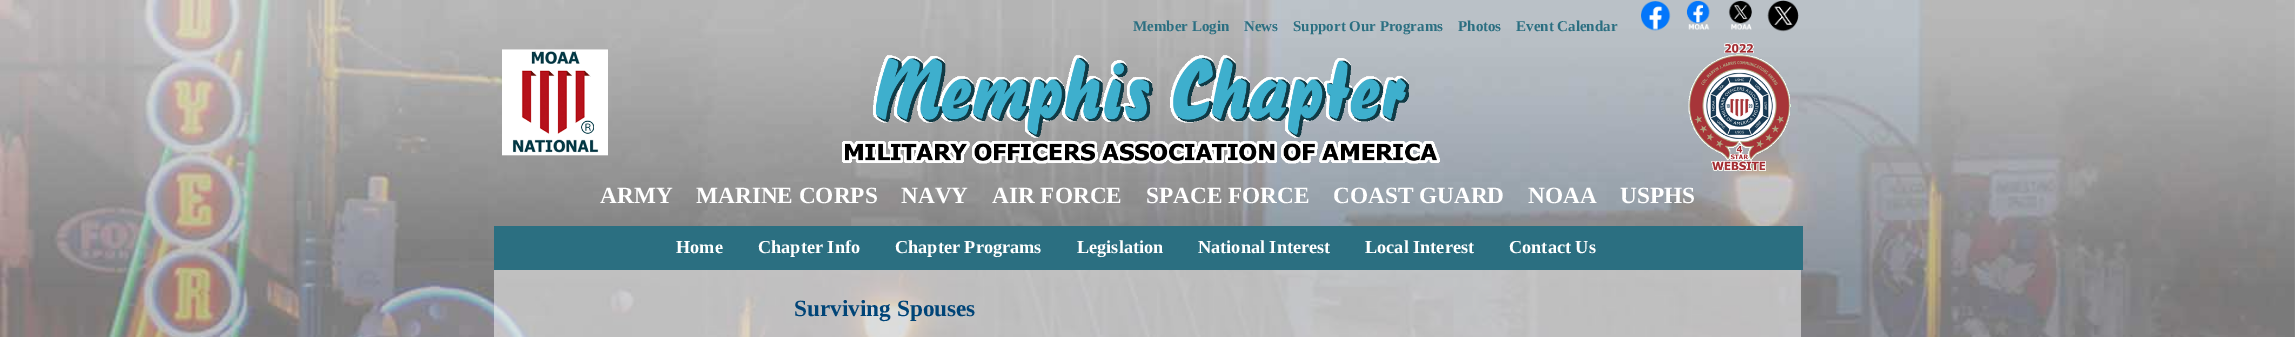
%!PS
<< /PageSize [2295 337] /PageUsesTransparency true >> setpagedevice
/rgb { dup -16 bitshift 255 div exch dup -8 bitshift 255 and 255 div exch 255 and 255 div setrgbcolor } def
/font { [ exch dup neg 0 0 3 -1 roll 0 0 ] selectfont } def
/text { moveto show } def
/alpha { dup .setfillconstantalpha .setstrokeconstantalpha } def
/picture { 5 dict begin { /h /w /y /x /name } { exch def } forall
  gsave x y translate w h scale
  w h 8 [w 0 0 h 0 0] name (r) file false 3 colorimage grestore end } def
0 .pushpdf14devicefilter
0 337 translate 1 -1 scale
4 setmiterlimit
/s1 { /LiberationSerif-Bold 15 font 16#2B6F81 rgb } def
/s2 { /LiberationSerif-Bold 23.25 font 16#FFFFFF rgb } def
/s3 { /LiberationSerif-Bold 18.25 font 16#FFFFFF rgb } def
/s4 { /LiberationSerif-Bold 23.25 font 16#004477 rgb } def
16#FFFFFF rgb
0 0 2295 337 rectfill
(pic1.raw) 0 0 2295 337 picture
s1
(Member Login) 1133 31 text
(News) 1244 31 text
(Support Our Programs) 1293 31 text
(Photos) 1458 31 text
(Event Calendar) 1516 31 text
(pic2.raw) 1641 1 30 30 picture
(pic3.raw) 1686 0 24 30 picture
(pic4.raw) 1728 0 24 30 picture
(pic5.raw) 1767 0 32 32 picture
(pic6.raw) 502 49 106 107 picture
(pic7.raw) 842 55 598 109 picture
(pic8.raw) 1688 43 103 128 picture
s2
(ARMY) 600 203 text
(MARINE CORPS) 696 203 text
(NAVY) 901 203 text
(AIR FORCE) 992 203 text
(SPACE FORCE) 1146 203 text
(COAST GUARD) 1333 203 text
(NOAA) 1528 203 text
(USPHS) 1620 203 text
16#2B6F81 rgb
494 226 1309 44 rectfill
s3
(Home) 676 253 text
(Chapter Info) 758 253 text
(Chapter Programs) 895 253 text
(Legislation) 1077 253 text
(National Interest) 1198 253 text
(Local Interest) 1365 253 text
(Contact Us) 1509 253 text
0.5 alpha
494 270 1307 67 rectfill
1 alpha
s4
(Surviving Spouses) 794 316 text
.poppdf14devicefilter showpage
